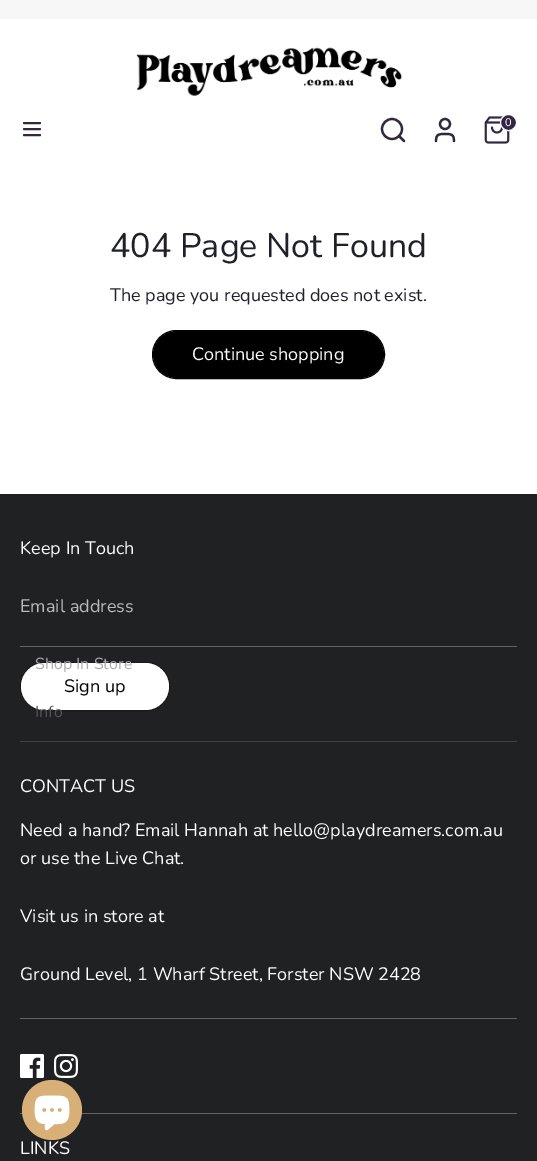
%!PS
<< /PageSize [537 1161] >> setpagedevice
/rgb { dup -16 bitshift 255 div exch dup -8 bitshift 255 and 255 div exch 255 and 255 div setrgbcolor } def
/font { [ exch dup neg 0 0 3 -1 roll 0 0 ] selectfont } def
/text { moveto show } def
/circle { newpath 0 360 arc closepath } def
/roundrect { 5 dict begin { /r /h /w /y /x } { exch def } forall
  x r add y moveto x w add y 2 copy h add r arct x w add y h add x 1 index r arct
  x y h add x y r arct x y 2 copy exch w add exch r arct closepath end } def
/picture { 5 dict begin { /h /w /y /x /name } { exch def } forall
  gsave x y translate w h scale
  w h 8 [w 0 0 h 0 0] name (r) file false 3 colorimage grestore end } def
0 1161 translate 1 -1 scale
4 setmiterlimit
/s1 { /Nunito-Regular 11 font 16#FFFFFF rgb } def
/s2 { /Nunito-Regular 16 font 16#ACADAD rgb } def
/s3 { /Nunito-Regular 16 font 16#545557 rgb } def
/s4 { /Nunito-Regular 34 font 16#20202B rgb } def
/s5 { /Nunito-Regular 18 font 16#20202B rgb } def
/s6 { /Nunito-Regular 18 font 16#FFFFFF rgb } def
/s7 { /Nunito-Regular 18 font 16#BCBCBD rgb } def
/s8 { /Nunito-Regular 18 font 16#000000 rgb } def
16#FFFFFF rgb
0 0 537 1161 rectfill
16#F7F7F7 rgb
0 0 537 19 rectfill
(pic1.raw) 136 47 266 49 picture
16#322741 rgb
2 setlinewidth
1 setlinecap
1 setlinejoin
24 129 moveto 40 129 lineto 24 123 moveto 40 123 lineto 24 135 moveto 40 135 lineto stroke
2.2 setlinewidth
0 setlinecap
0 setlinejoin
392 129 10 circle stroke
1 setlinecap
1 setlinejoin
404 141 moveto 399 136 lineto 454 141 moveto 454 134 451.5 134 445 134 curveto 438.5 134 436 134 436 141 curveto stroke
0 setlinecap
0 setlinejoin
445 124 5 circle stroke
(pic2.raw) 484 116 26 28 picture
508.5 122.5 8 circle gsave fill grestore
16#FFFFFF rgb
1 setlinewidth
stroke
s1
(0) 505 126 text
16#202123 rgb
0 494 537 667 rectfill
16#18191A rgb
20.5 662.5 149 48 24 roundrect stroke
16#FFFFFF rgb
21 663 148 47 23.5 roundrect fill
s2
(Shop In Store) 35 669 text
s3
(Info) 35 717 text
s4
(404 Page Not Found) 110 257 text
s5
(The page you requested does not exist.) 110 301 text
16#000000 rgb
152.5 330.5 232 48 24 roundrect stroke
153 331 231 47 23.5 roundrect fill
s6
(Continue shopping) 192 360 text
(Keep In Touch) 20 554 text
16#636465 rgb
20 646 497 1 rectfill
s7
(Email address) 20 612 text
s8
(Sign up) 64 692 text
16#414244 rgb
20 741 497 1 rectfill
16#636465 rgb
20 1018 497 1 rectfill
s6
(CONTACT US) 20 792 text
(Need a hand? Email Hannah at hello@playdreamers.com.au) 20 836 text
(or use the Live Chat.) 20 864 text
(Visit us in store at) 20 922 text
(Ground Level, 1 Wharf Street, Forster NSW 2428) 20 980 text
16#636465 rgb
20 1113 497 1 rectfill
(pic3.raw) 20 1054 24 24 picture
(pic4.raw) 54 1054 24 24 picture
s6
(LINKS) 20 1154 text
16#D7AF77 rgb
52 1110 30 circle fill
(pic5.raw) 34 1095 36 36 picture
showpage
